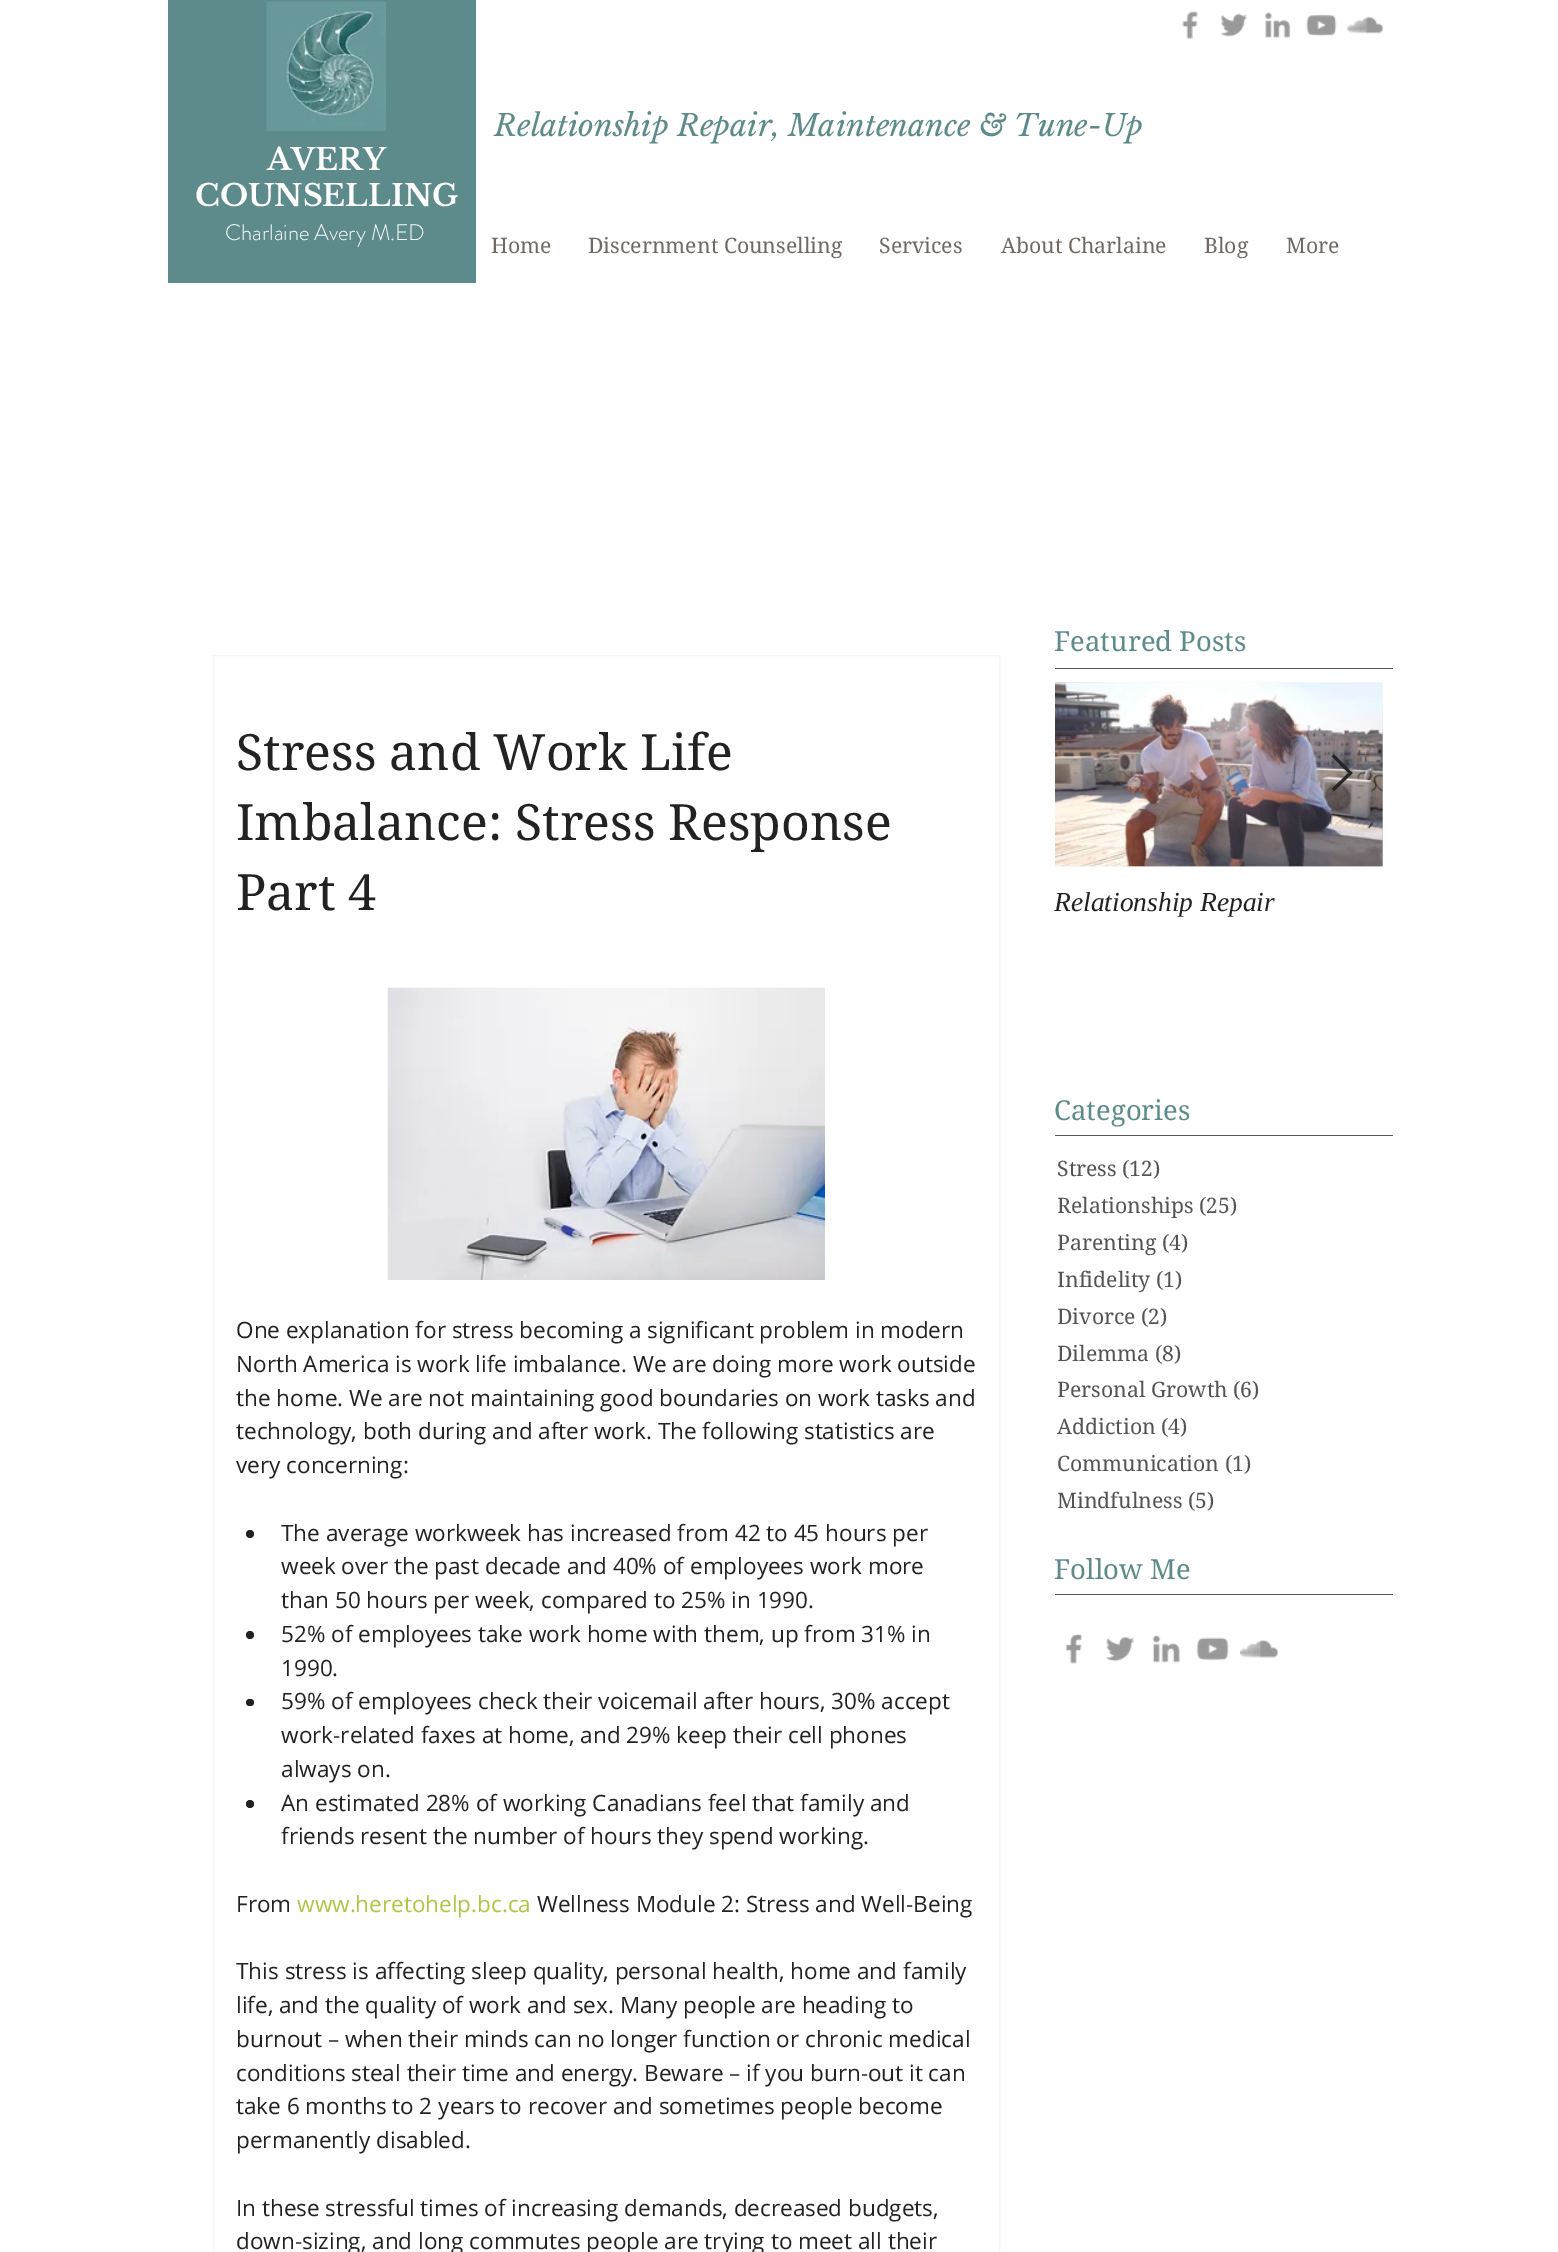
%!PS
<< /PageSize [1558 2252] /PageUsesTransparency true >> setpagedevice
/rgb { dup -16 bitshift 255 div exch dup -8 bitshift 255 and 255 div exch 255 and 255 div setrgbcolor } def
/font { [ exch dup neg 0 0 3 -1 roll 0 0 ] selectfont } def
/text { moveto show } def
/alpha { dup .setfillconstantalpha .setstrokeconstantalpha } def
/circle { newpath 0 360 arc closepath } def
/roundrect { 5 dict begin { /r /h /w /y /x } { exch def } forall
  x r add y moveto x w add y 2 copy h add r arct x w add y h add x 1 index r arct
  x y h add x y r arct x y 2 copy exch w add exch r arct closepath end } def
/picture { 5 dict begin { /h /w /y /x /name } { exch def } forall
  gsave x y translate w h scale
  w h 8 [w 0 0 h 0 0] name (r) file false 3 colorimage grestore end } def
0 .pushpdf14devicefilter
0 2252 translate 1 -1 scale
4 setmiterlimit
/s1 { /LibreBaskerville-Italic 30 font 16#5D8B8B rgb } def
/s2 { /LibreBaskerville-Bold 30 font 16#FFFFFF rgb } def
/s3 { /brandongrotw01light-Light 22.5 font 16#FFFFFF rgb } def
/s4 { /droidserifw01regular-Regular 21.25 font 16#706962 rgb } def
/s5 { /droidserifw01regular-Regular 27.5 font 16#5D8B8B rgb } def
/s6 { /droidserifw01regular-Regular 50 font 16#222222 rgb } def
/s7 { /OpenSans-Regular 22.5 font 16#222222 rgb } def
/s8 { /OpenSans-Regular 22.5 font 16#ADC743 rgb } def
/s9 { /LiberationSerif-Italic 27.5 font 16#222222 rgb } def
/s10 { /droidserifw01regular-Regular 21.25 font 16#555353 rgb } def
16#FFFFFF rgb
0 0 1558 2252 rectfill
(pic1.raw) 1182 11 16 28 picture
(pic2.raw) 1220 13 27 24 picture
(pic3.raw) 1265 12 26 26 picture
(pic4.raw) 1306 14 31 22 picture
(pic5.raw) 1347 16 36 18 picture
s1
(Relationship Repair, Maintenance & Tune-Up) 494 136 text
168 0 308 283 rectfill
(pic6.raw) 266 1 120 130 picture
s2
(AVERY) 267 170 text
(COUNSELLING) 195 206 text
s3
(Charlaine Avery M.ED) 225 240 text
s4
(Home) 491 253 text
(Discernment Counselling) 588 253 text
(Services) 879 253 text
(About Charlaine) 1001 253 text
(Blog) 1204 253 text
(More) 1286 253 text
s5
(Featured Posts) 1054 651 text
16#555353 rgb
1055 668 338 1 rectfill
16#F4F4F4 rgb
213.5 655.5 786 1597 rectstroke
s6
(Stress and Work Life) 236 770 text
(Imbalance: Stress Response) 236 840 text
(Part 4) 236 910 text
(pic7.raw) 387 987 438 293 picture
s7
(One explanation for stress becoming a significant problem in modern) 236 1338 text
(North America is work life imbalance. We are doing more work outside) 236 1372 text
(the home. We are not maintaining good boundaries on work tasks and) 236 1406 text
(technology, both during and after work. The following statistics are) 236 1439 text
(very concerning:) 236 1473 text
250 1534 4 circle fill
(The average workweek has increased from 42 to 45 hours per) 281 1541 text
(week over the past decade and 40% of employees work more) 281 1574 text
(than 50 hours per week, compared to 25% in 1990.) 281 1608 text
250 1635 4 circle fill
(52% of employees take work home with them, up from 31% in) 281 1642 text
(1990.) 281 1676 text
246 1699 8 7 3.5 roundrect fill
(59% of employees check their voicemail after hours, 30% accept) 281 1709 text
(work-related faxes at home, and 29% keep their cell phones) 281 1743 text
(always on.) 281 1777 text
250 1804 4 circle fill
(An estimated 28% of working Canadians feel that family and) 281 1811 text
(friends resent the number of hours they spend working.) 281 1844 text
(From) 236 1912 text
s8
(www.heretohelp.bc.ca) 297 1912 text
s7
(Wellness Module 2: Stress and Well-Being) 537 1912 text
(This stress is affecting sleep quality, personal health, home and family) 236 1979 text
(life, and the quality of work and sex. Many people are heading to) 236 2013 text
(burnout – when their minds can no longer function or chronic medical) 236 2047 text
(conditions steal their time and energy. Beware – if you burn-out it can) 236 2081 text
(take 6 months to 2 years to recover and sometimes people become) 236 2114 text
(permanently disabled.) 236 2148 text
(In these stressful times of increasing demands, decreased budgets,) 236 2216 text
(down-sizing, and long commutes people are trying to meet all their) 236 2249 text
(pic8.raw) 1055 682 328 185 picture
(pic9.raw) 1055 682 328 185 picture
0.9 alpha
1332.5 756.5 moveto 1334 755 lineto 1352 773 lineto 1334 790.5 lineto 1332.5 789 lineto 1349 773 lineto closepath gsave fill grestore
stroke
1 alpha
s9
(Relationship Repair) 1054 911 text
s5
(Categories) 1054 1120 text
16#555353 rgb
1055 1135 338 1 rectfill
s10
(Stress \(12\)) 1057 1176 text
gsave
1058 1190 180 33 rectclip
(Relationships) 1057 1213 text
grestore
(\(25\)) 1199 1213 text
gsave
1058 1228 131 31 rectclip
(Parenting) 1057 1250 text
grestore
(\(4\)) 1162 1250 text
gsave
1058 1264 125 32 rectclip
(Infidelity) 1057 1287 text
grestore
(\(1\)) 1156 1287 text
gsave
1058 1301 110 32 rectclip
(Divorce) 1057 1324 text
grestore
(\(2\)) 1141 1324 text
gsave
1058 1338 123 32 rectclip
(Dilemma) 1057 1361 text
grestore
(\(8\)) 1155 1361 text
gsave
1058 1375 202 31 rectclip
(Personal Growth) 1057 1397 text
grestore
(\(6\)) 1233 1397 text
(Addiction \(4\)) 1057 1434 text
(Communication \(1\)) 1057 1471 text
gsave
1058 1485 157 33 rectclip
(Mindfulness) 1057 1508 text
grestore
(\(5\)) 1188 1508 text
s5
(Follow Me) 1054 1579 text
16#555353 rgb
1055 1594 338 1 rectfill
(pic10.raw) 1066 1634 16 30 picture
(pic11.raw) 1106 1636 29 26 picture
(pic12.raw) 1152 1635 29 28 picture
(pic13.raw) 1196 1637 33 24 picture
(pic14.raw) 1240 1640 38 18 picture
.poppdf14devicefilter showpage
